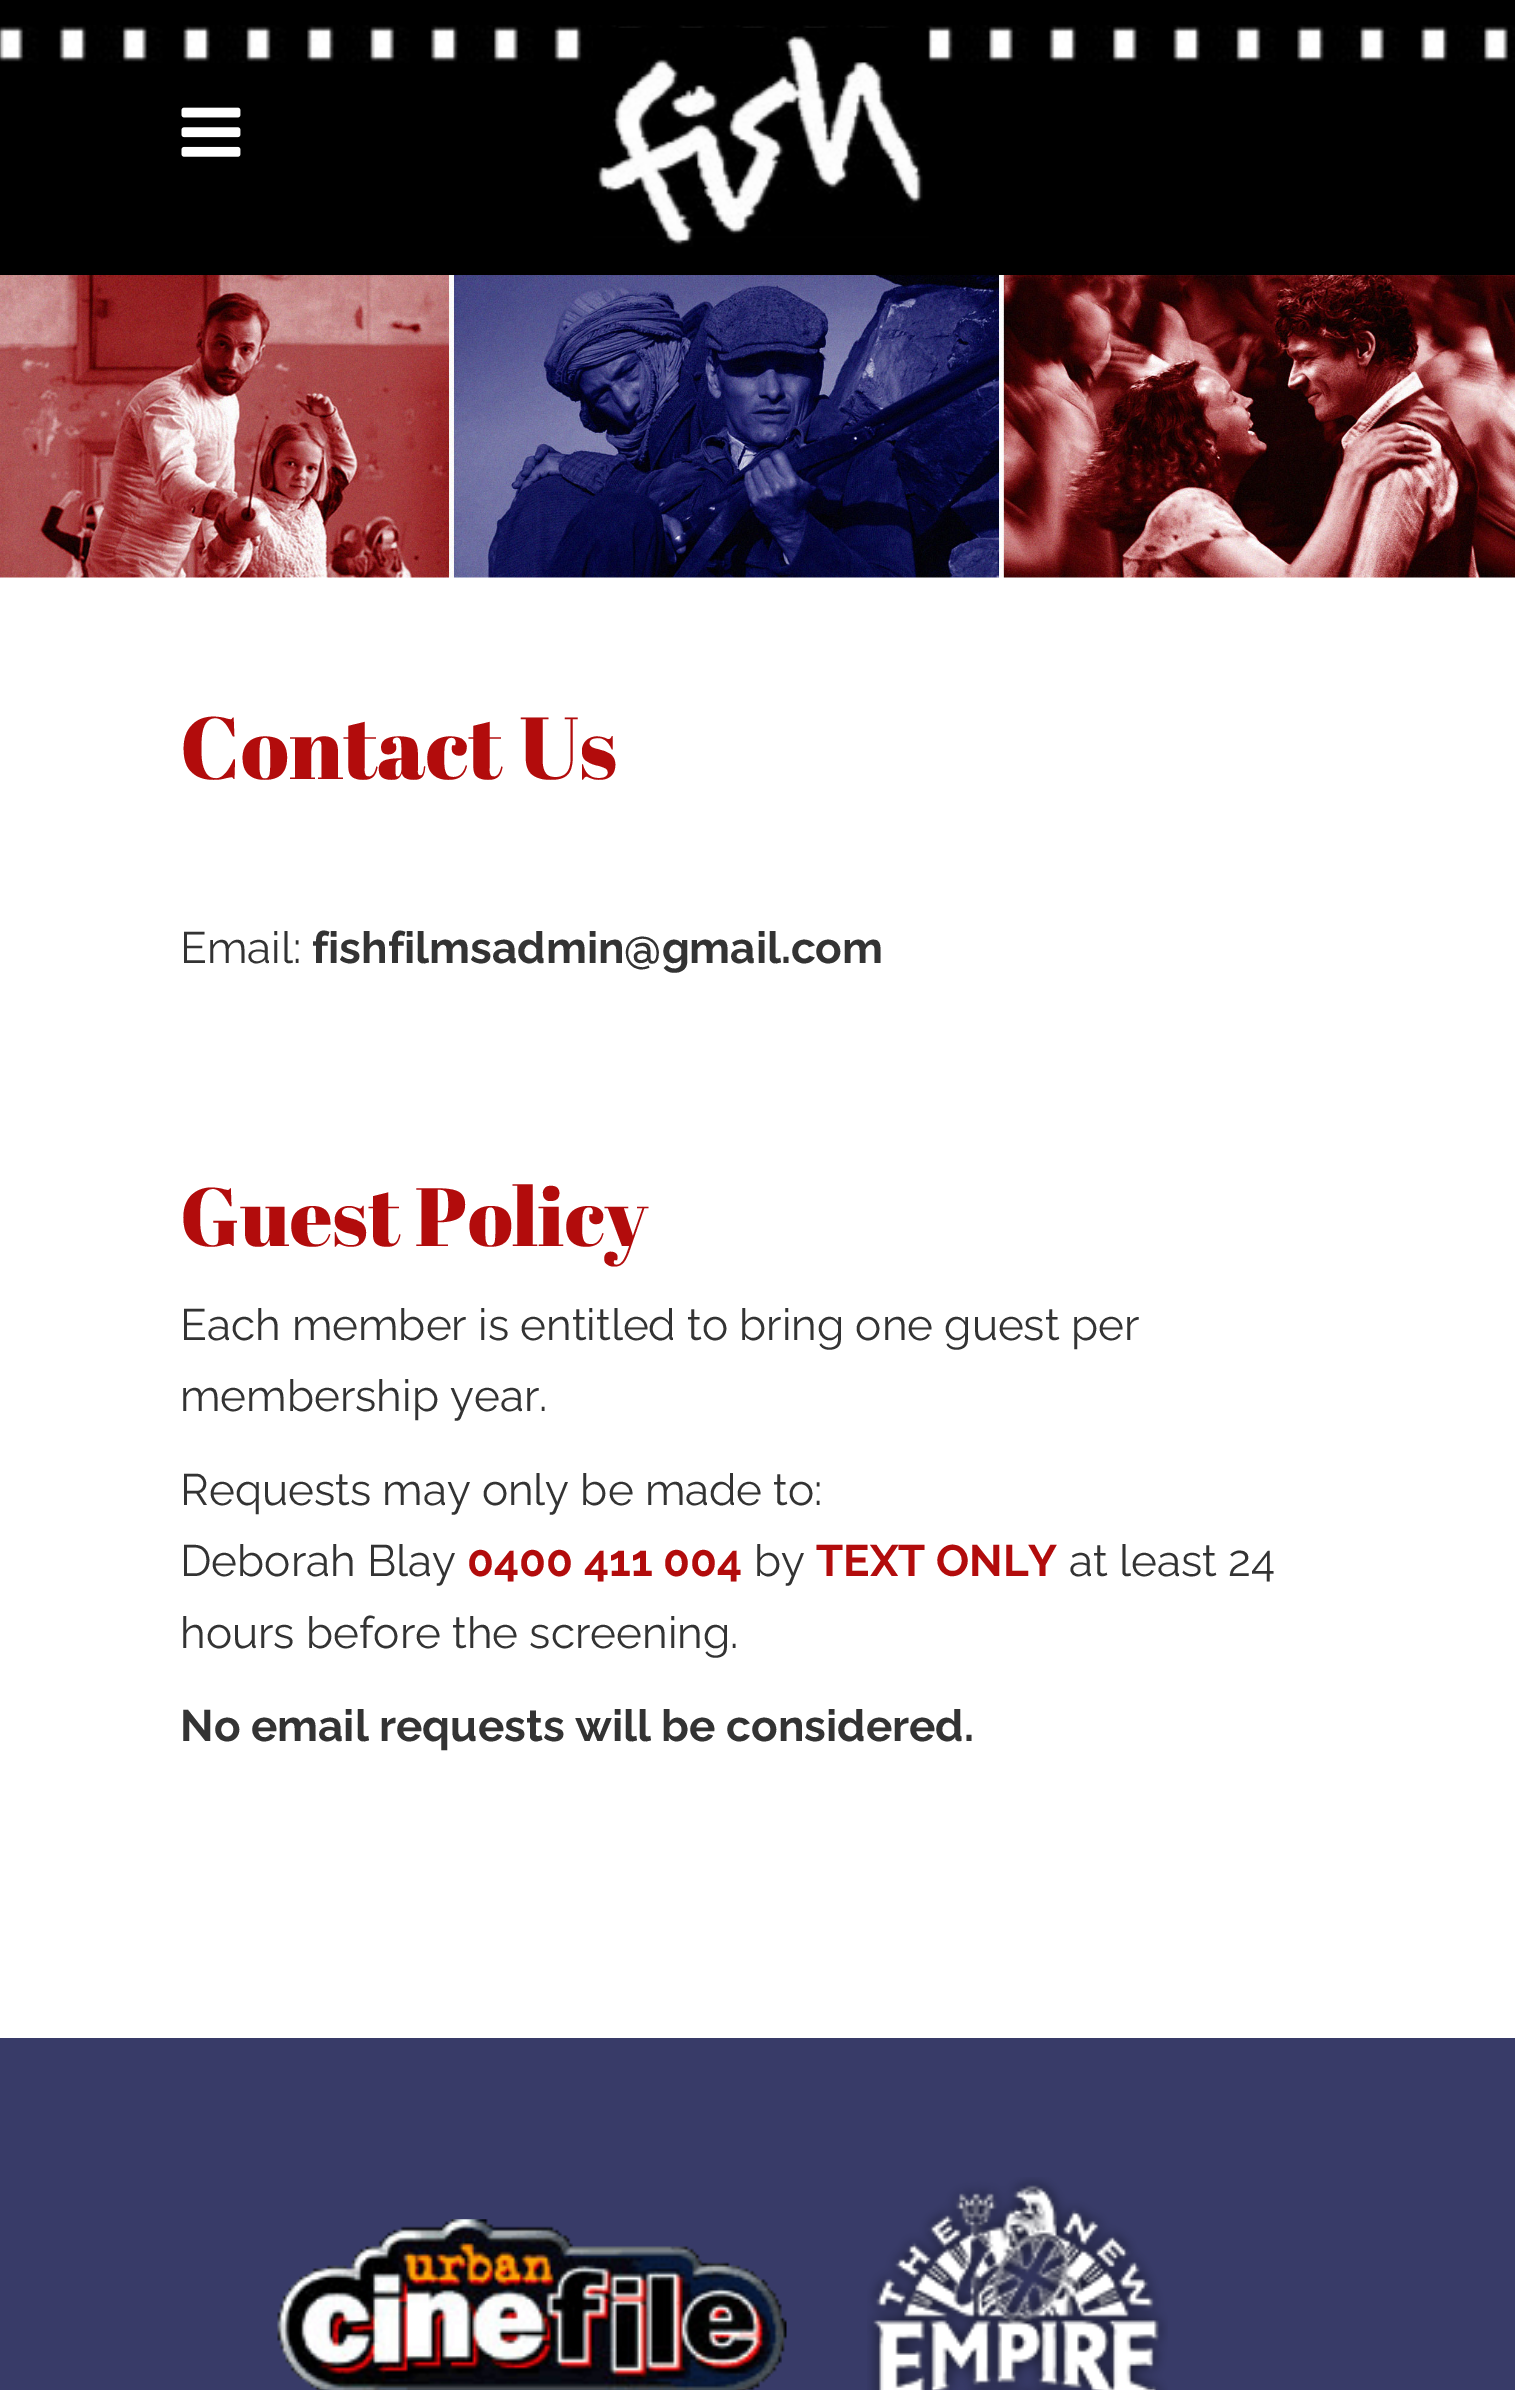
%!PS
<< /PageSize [1515 2390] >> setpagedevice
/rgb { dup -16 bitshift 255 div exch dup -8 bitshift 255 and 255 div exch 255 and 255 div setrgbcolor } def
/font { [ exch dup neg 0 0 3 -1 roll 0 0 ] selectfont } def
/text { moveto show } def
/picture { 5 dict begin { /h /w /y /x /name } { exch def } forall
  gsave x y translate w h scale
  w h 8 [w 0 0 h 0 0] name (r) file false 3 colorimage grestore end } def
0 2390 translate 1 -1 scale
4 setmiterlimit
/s1 { /AbrilFatface-Regular 88 font 16#B20C0C rgb } def
/s2 { /Raleway-Regular 44 font 16#333333 rgb } def
/s3 { /Raleway-Bold 44 font 16#333333 rgb } def
/s4 { /AbrilFatface-Regular 82.5 font 16#B20C0C rgb } def
/s5 { /Raleway-Bold 44 font 16#B20C0C rgb } def
16#FFFFFF rgb
0 0 1515 2390 rectfill
16#000000 rgb
0 0 1515 275 rectfill
(pic1.raw) 0 25 1515 38 picture
(pic2.raw) 181 107 60 50 picture
(pic3.raw) 593 27 339 220 picture
(pic4.raw) 0 275 1515 303 picture
s1
(Contact Us) 180 779 text
s2
(Email:) 180 963 text
s3
(fishfilmsadmin@gmail.com) 312 963 text
s4
(Guest Policy) 180 1246 text
s2
(Each member is entitled to bring one guest per) 180 1340 text
(membership year.) 180 1411 text
(Requests may only be made to:) 180 1505 text
(Deborah Blay) 180 1576 text
s5
(0400 411 004) 467 1576 text
s2
(by) 754 1576 text
s5
(TEXT ONLY) 816 1576 text
s2
(at least 24) 1069 1576 text
(hours before the screening.) 180 1648 text
s3
(No email requests will be considered.) 180 1741 text
16#383B68 rgb
0 2038 1515 352 rectfill
(pic5.raw) 277 2219 510 171 picture
(pic6.raw) 867 2177 301 213 picture
showpage
